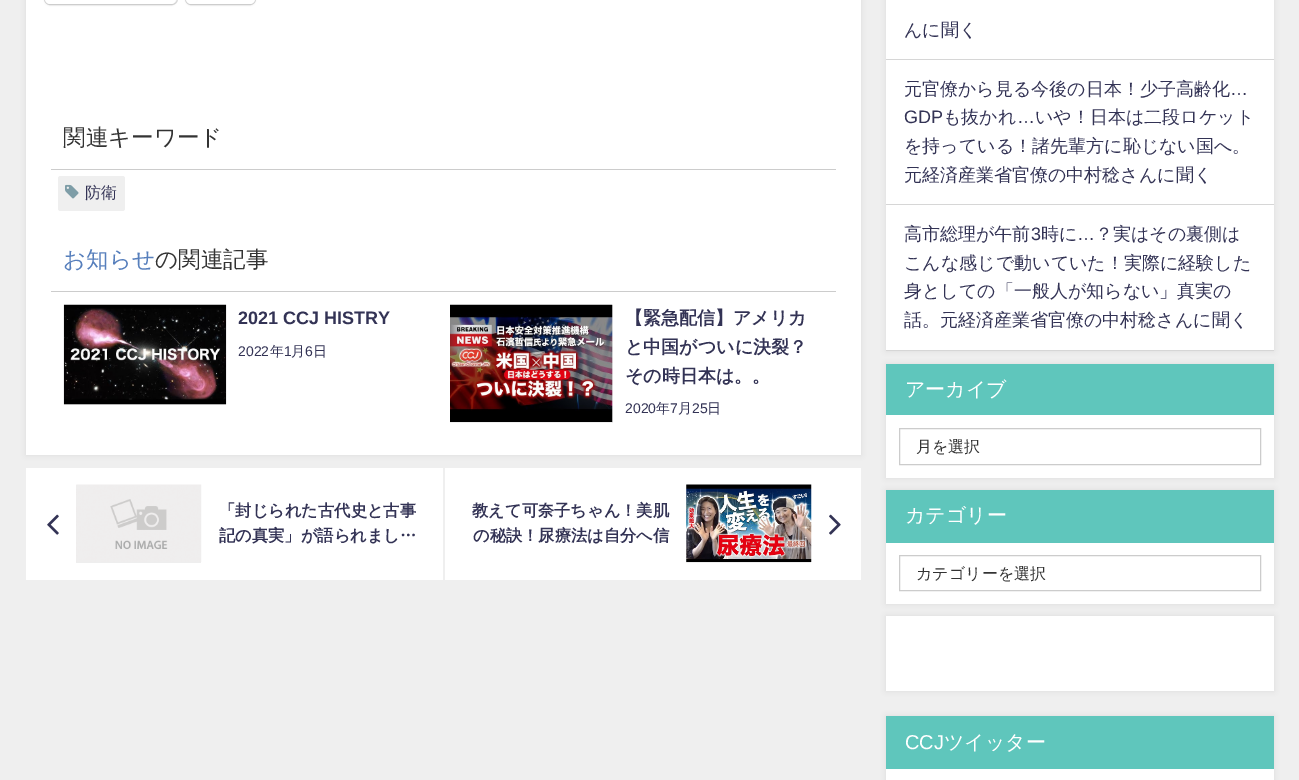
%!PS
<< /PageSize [1299 780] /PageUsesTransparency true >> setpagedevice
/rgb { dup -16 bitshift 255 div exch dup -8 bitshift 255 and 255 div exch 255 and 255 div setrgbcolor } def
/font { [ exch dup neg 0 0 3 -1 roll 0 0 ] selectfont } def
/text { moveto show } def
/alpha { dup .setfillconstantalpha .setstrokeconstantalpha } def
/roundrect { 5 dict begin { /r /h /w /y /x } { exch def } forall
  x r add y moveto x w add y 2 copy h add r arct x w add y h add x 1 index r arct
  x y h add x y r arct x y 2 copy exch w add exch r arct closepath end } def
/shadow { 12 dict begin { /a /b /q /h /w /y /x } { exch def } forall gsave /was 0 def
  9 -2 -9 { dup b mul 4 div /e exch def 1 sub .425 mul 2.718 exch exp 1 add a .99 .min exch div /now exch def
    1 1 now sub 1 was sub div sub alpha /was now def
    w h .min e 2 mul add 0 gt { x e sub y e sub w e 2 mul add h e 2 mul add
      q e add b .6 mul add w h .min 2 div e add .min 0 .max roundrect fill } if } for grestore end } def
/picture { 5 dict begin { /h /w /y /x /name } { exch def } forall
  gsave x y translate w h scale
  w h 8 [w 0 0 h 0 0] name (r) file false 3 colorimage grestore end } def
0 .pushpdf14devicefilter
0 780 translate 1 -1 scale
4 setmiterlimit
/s1 { /WenQuanYiZenHei-Medium 22.5 font 16#333333 rgb } def
/s2 { /WenQuanYiZenHei-Medium 16 font 16#333355 rgb } def
/s3 { /WenQuanYiZenHei-Medium 22.5 font 16#577FBC rgb } def
/s4 { /LiberationSans-Bold 18 font 16#333355 rgb } def
/s5 { /LiberationSans-Regular 14 font 16#333355 rgb } def
/s6 { /WenQuanYiZenHei-Medium 14 font 16#333355 rgb } def
/s7 { /WenQuanYiZenHei-Bold 18 font 16#333355 rgb } def
/s8 { /WenQuanYiZenHei-Bold 16.25 font 16#333355 rgb } def
/s9 { /WenQuanYiZenHei-Medium 18 font 16#333355 rgb } def
/s10 { /LiberationSans-Regular 18 font 16#333355 rgb } def
/s11 { /WenQuanYiZenHei-Medium 20 font 16#FFFFFF rgb } def
/s12 { /WenQuanYiZenHei-Medium 16 font 16#333333 rgb } def
/s13 { /LiberationSans-Regular 20 font 16#FFFFFF rgb } def
16#EFEFEF rgb
0 0 1299 780 rectfill
16#969696 rgb
26 -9 835 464 0 3 0.2 shadow
16#FFFFFF rgb
26 0 835 455 rectfill
16#E0E0E0 rgb
44.5 -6.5 133 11 5.5 roundrect stroke
16#000000 rgb
45 -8 131 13 5 1 0.12 shadow
16#FFFFFF rgb
45 -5 131 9 5 roundrect fill
16#E0E0E0 rgb
185.5 -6.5 70 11 5.5 roundrect stroke
16#000000 rgb
186 -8 69 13 5 1 0.12 shadow
16#FFFFFF rgb
186 -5 69 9 5 roundrect fill
16#CCCCCC rgb
51 169 785 1 rectfill
s1
(関連キーワード) 63 145 text
16#EFEFEF rgb
58 176 67 35 2.5 roundrect fill
(pic1.raw) 65 184 14 15 picture
s2
(防衛) 85 198 text
16#CCCCCC rgb
51 291 785 1 rectfill
s3
(お知らせ) 63 267 text
s1
(の関連記事) 155 267 text
16#EEEEEE rgb
64 404 162 1 rectfill
(pic2.raw) 63 304 164 101 picture
s4
(2021 CCJ HISTRY) 238 324 text
s5
(2022) 238 356 text
s6
(年) 270 356 text
s5
(1) 284 356 text
s6
(月) 291 356 text
s5
(6) 305 356 text
s6
(日) 313 356 text
16#EEEEEE rgb
450 305 163 118 rectfill
(pic3.raw) 450 304 163 118 picture
s7
(【緊急配信】アメリカ) 625 324 text
(と中国がついに決裂？) 625 353 text
(その時日本は。。) 625 382 text
s5
(2020) 625 413 text
s6
(年) 656 413 text
s5
(7) 670 413 text
s6
(月) 678 413 text
s5
(25) 692 413 text
s6
(日) 707 413 text
16#FFFFFF rgb
26 468 417 112 rectfill
(pic4.raw) 47 514 12 21 picture
16#EEEEEE rgb
76 485 125 78 rectfill
(pic5.raw) 76 484 126 78 picture
s8
(「封じられた古代史と古事) 219 516 text
(記の真実」が語られまし…) 219 541 text
16#FFFFFF rgb
445 468 416 112 rectfill
s8
(教えて可奈子ちゃん！美肌) 472 516 text
(の秘訣！尿療法は自分へ信) 473 541 text
16#EEEEEE rgb
686 485 125 78 rectfill
(pic6.raw) 686 484 126 78 picture
(pic7.raw) 829 514 12 21 picture
16#969696 rgb
886 -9 388 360 0 3 0.2 shadow
16#FFFFFF rgb
886 0 388 350 rectfill
16#D6D6D6 rgb
886 59 388 1 rectfill
s9
(んに聞く) 904 36 text
16#D6D6D6 rgb
886 204 388 1 rectfill
s9
(元官僚から見る今後の日本！少子高齢化) 904 95 text
s10
(…) 1230 95 text
(GDP) 904 123 text
s9
(も抜かれ) 943 123 text
s10
(…) 1017 123 text
s9
(いや！日本は二段ロケット) 1035 123 text
(を持っている！諸先輩方に恥じない国へ。) 904 152 text
(元経済産業省官僚の中村稔さんに聞く) 904 181 text
16#D6D6D6 rgb
886 350 388 1 rectfill
s9
(高市総理が午前) 904 240 text
s10
(3) 1031 240 text
s9
(時に) 1041 240 text
s10
(…) 1077 240 text
s9
(？実はその裏側は) 1095 240 text
(こんな感じで動いていた！実際に経験した) 904 269 text
(身としての「一般人が知らない」真実の) 904 297 text
(話。元経済産業省官僚の中村稔さんに聞く) 904 326 text
16#969696 rgb
886 364 388 114 0 3 0.2 shadow
16#FFFFFF rgb
886 415 388 63 rectfill
16#5FC6BC rgb
886 364 388 51 rectfill
s11
(アーカイブ) 905 396 text
16#CCCCCC rgb
899.5 428.5 361 36 rectstroke
s12
(月を選択) 916 452 text
16#969696 rgb
886 490 388 114 0 3 0.2 shadow
16#FFFFFF rgb
886 543 388 61 rectfill
16#5FC6BC rgb
886 490 388 53 rectfill
s11
(カテゴリー) 905 522 text
16#CCCCCC rgb
899.5 555.5 361 35 rectstroke
s12
(カテゴリーを選択) 916 579 text
16#969696 rgb
886 616 388 75 0 3 0.2 shadow
16#FFFFFF rgb
886 616 388 75 rectfill
16#969696 rgb
886 716 388 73 0 3 0.2 shadow
16#FFFFFF rgb
886 769 388 11 rectfill
16#5FC6BC rgb
886 716 388 53 rectfill
s13
(CCJ) 905 749 text
s11
(ツイッター) 944 749 text
.poppdf14devicefilter showpage
